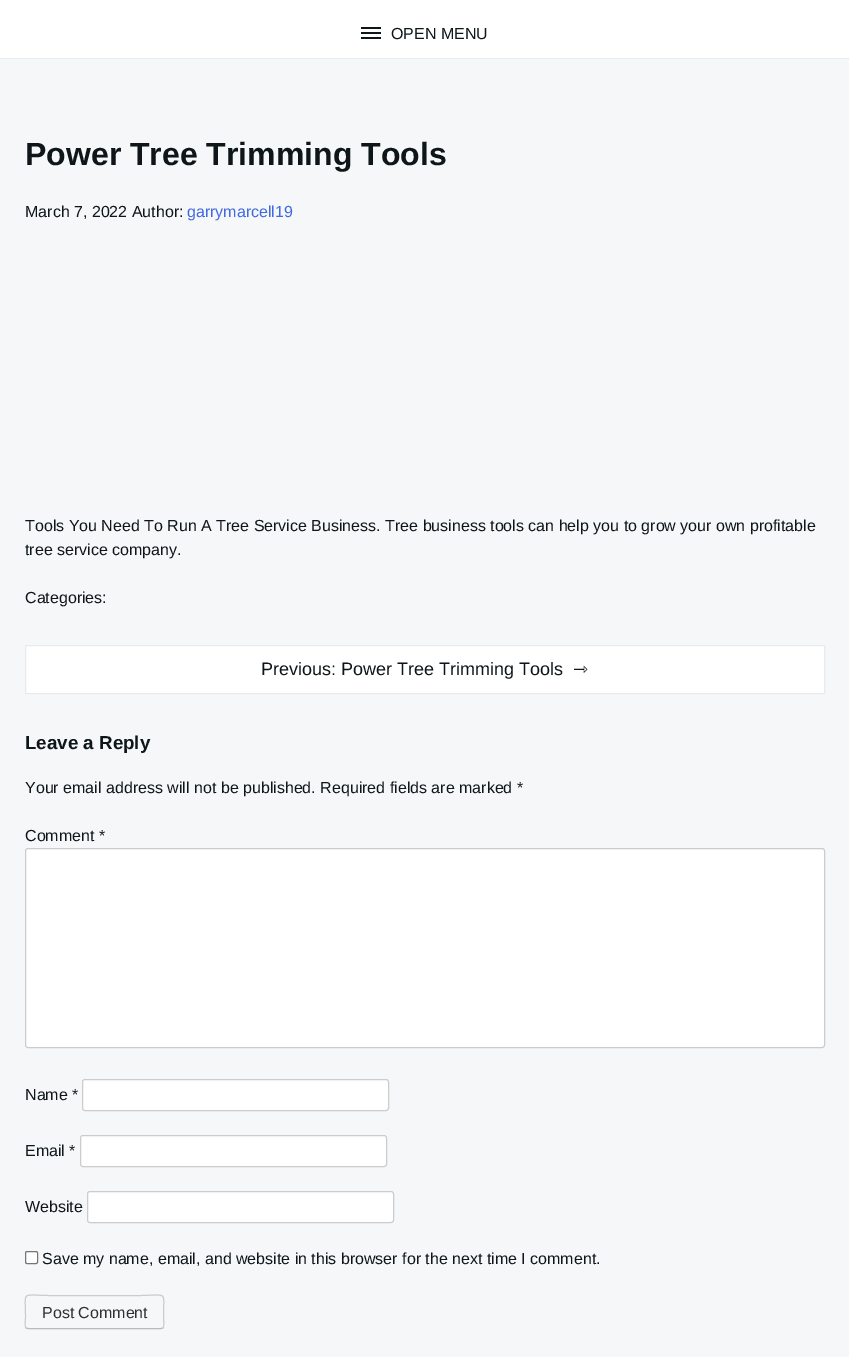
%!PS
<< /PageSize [849 1357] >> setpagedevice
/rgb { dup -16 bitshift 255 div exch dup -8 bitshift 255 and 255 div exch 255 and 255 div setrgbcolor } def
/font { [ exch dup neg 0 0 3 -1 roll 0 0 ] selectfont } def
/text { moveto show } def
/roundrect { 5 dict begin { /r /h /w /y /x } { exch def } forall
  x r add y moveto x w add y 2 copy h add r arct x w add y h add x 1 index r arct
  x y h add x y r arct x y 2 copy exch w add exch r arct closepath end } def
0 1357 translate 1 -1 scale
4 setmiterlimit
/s1 { /LiberationSans-Regular 16 font 16#0F161A rgb } def
/s2 { /LiberationSans-Bold 32 font 16#0F161A rgb } def
/s3 { /LiberationSans-Regular 16 font 16#4169E1 rgb } def
/s4 { /LiberationSans-Regular 18 font 16#0F161A rgb } def
/s5 { /DejaVuSans-Regular 18 font 16#0F161A rgb } def
/s6 { /LiberationSans-Bold 18.75 font 16#0F161A rgb } def
/s7 { /LiberationSans-Regular 16 font 16#313132 rgb } def
16#F5F7F8 rgb
0 0 849 1357 rectfill
16#FFFFFF rgb
0 0 849 58 rectfill
16#E9EBEB rgb
0 58 849 1 rectfill
16#0F161A rgb
361 27 20 2 rectfill
361 32 20 2 rectfill
361 37 20 2 rectfill
s1
(OPEN MENU) 391 39 text
s2
(Power Tree Trimming Tools) 25 165 text
s1
(March 7, 2022 Author:) 25 217 text
s3
(garrymarcell19) 187 217 text
s1
(Tools You Need To Run A Tree Service Business. Tree business tools can help you to grow your own profitable) 25 531 text
(tree service company.) 25 555 text
(Categories:) 25 603 text
16#FFFFFF rgb
25.5 645.5 moveto 824.5 645.5 lineto 824.5 693.5 lineto 25.5 693.5 lineto closepath gsave fill grestore
16#E9EBEB rgb
stroke
s4
(Previous: Power Tree Trimming Tools) 261 675 text
s5
(⇾) 573 675 text
s6
(Leave a Reply) 25 749 text
s1
(Your email address will not be published. Required fields are marked *) 25 793 text
(Comment *) 25 841 text
16#FFFFFF rgb
25.5 848.5 799 199 2.5 roundrect gsave fill grestore
16#CCCCCC rgb
stroke
s1
(Name *) 25 1100 text
16#FFFFFF rgb
82.5 1079.5 306 31 2.5 roundrect gsave fill grestore
16#CCCCCC rgb
stroke
s1
(Email *) 25 1156 text
16#FFFFFF rgb
80.5 1135.5 306 31 2.5 roundrect gsave fill grestore
16#CCCCCC rgb
stroke
s1
(Website) 25 1212 text
16#FFFFFF rgb
87.5 1191.5 306 31 2.5 roundrect gsave fill grestore
16#CCCCCC rgb
stroke
16#FFFFFF rgb
25.5 1251.5 12 12 1.5 roundrect gsave fill grestore
16#767676 rgb
stroke
s1
(Save my name, email, and website in this browser for the next time I comment.) 42 1264 text
16#BBBBBB rgb
163 1328 moveto 161 1328.5 lineto 28 1328.5 lineto 26 1328 lineto stroke
16#CCCCCC rgb
26 1328 moveto 24.5 1326 25.5 1319 25.5 1316.5 curveto 25.5 1289.5 20.5 1295.5 50 1295.5 curveto 139 1295.5 lineto 168.5 1295.5 163.5 1289.5 163.5 1316.5 curveto 163.5 1319 164.5 1326 163 1328 curveto stroke
s7
(Post Comment) 42 1318 text
showpage
